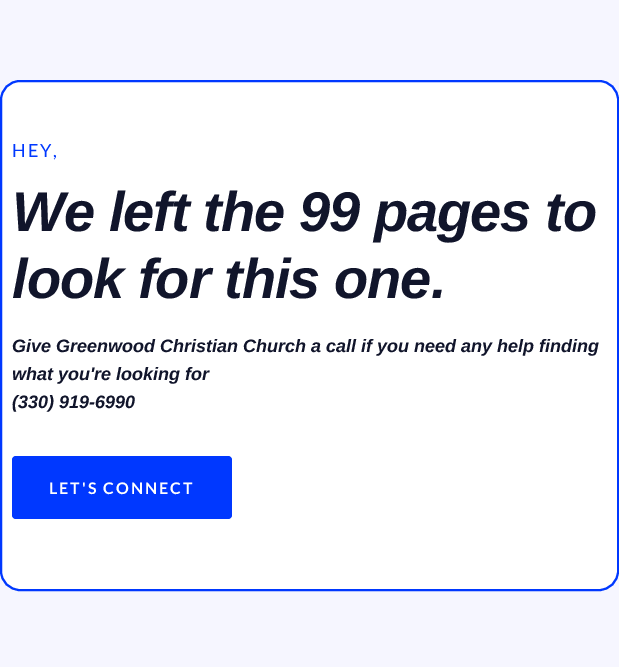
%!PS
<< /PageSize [619 667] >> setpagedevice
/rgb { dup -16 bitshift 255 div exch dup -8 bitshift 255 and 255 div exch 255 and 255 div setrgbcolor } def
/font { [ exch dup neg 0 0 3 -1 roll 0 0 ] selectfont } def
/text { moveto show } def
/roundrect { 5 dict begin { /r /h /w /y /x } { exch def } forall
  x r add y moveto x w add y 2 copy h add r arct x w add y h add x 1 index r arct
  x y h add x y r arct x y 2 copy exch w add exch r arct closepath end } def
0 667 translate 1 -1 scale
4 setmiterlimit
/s1 { /LiberationSans-BoldItalic 18 font 16#11152B rgb } def
16#F6F6FF rgb
0 0 619 667 rectfill
16#FFFFFF rgb
1 81 617 509 19 roundrect gsave fill grestore
16#0038FF rgb
2 setlinewidth
stroke
/Lato-Regular 18 font
12 157 moveto 2 0 (HEY,) ashow
/LiberationSans-BoldItalic 56 font
16#11152B rgb
12 231 moveto -1 0 (We left the 99 pages to) ashow
12 298 moveto -1 0 (look for this one.) ashow
s1
(Give Greenwood Christian Church a call if you need any help finding) 12 352 text
(what you're looking for) 12 380 text
(\(330\) 919-6990) 12 408 text
16#0038FF rgb
12 456 220 63 4 roundrect fill
/Lato-Bold 16 font
16#FFFFFF rgb
49 494 moveto 2 0 (LET'S CONNECT) ashow
showpage
